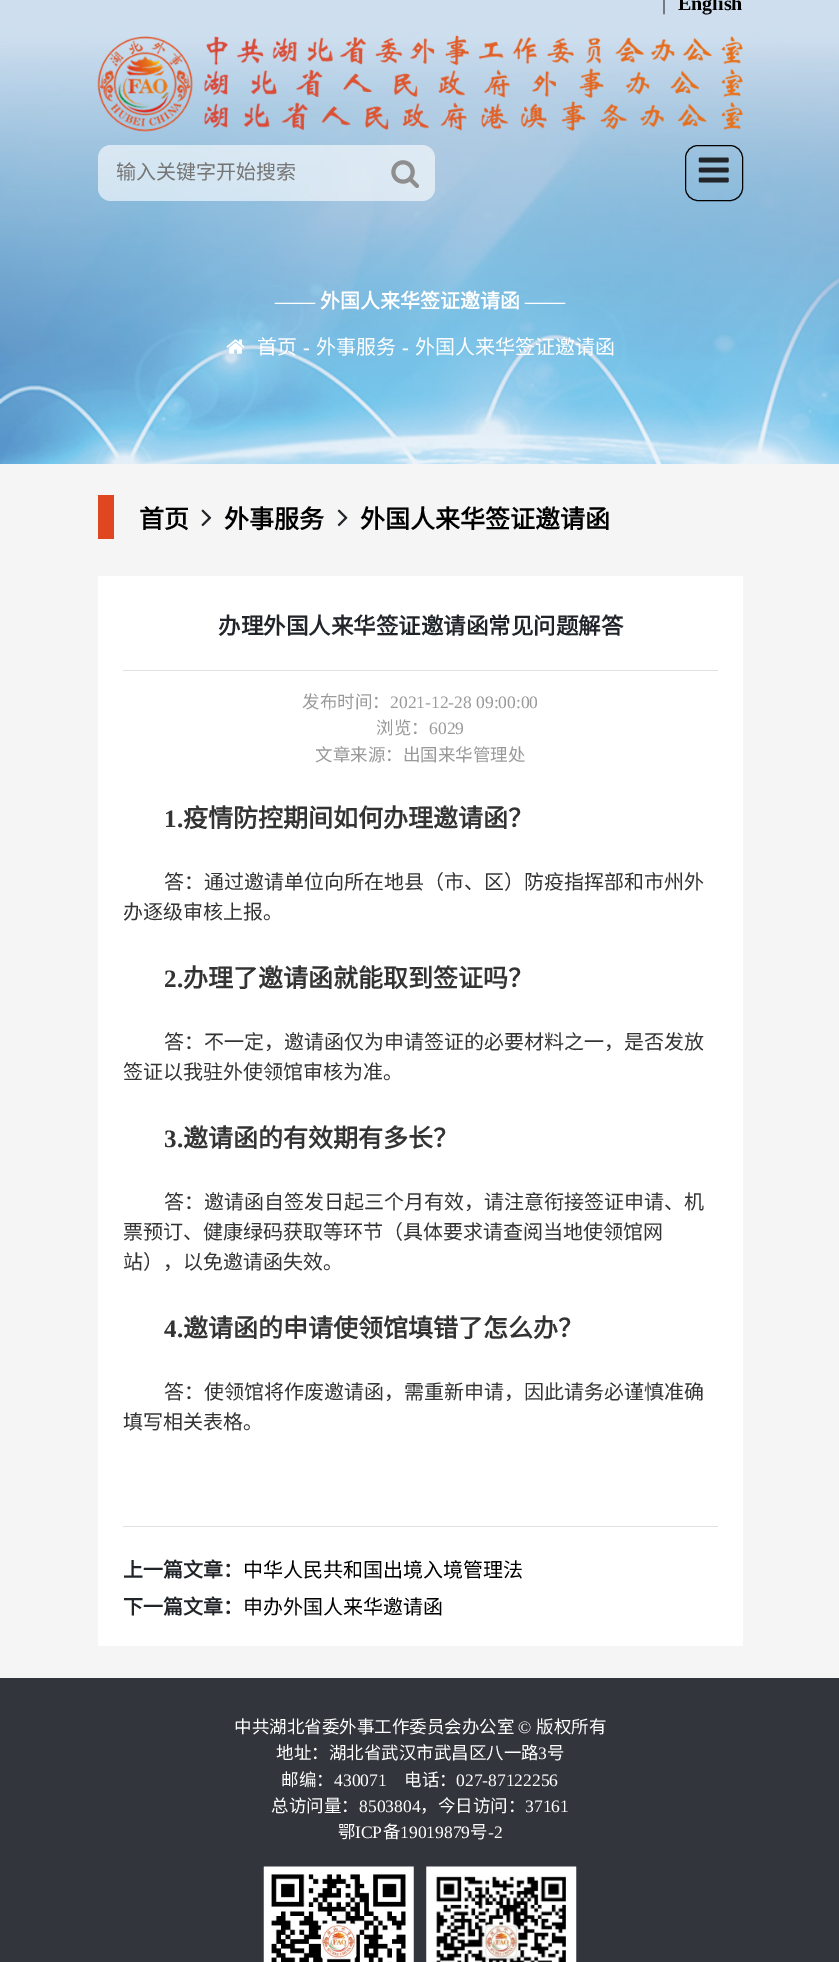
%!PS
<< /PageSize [839 1962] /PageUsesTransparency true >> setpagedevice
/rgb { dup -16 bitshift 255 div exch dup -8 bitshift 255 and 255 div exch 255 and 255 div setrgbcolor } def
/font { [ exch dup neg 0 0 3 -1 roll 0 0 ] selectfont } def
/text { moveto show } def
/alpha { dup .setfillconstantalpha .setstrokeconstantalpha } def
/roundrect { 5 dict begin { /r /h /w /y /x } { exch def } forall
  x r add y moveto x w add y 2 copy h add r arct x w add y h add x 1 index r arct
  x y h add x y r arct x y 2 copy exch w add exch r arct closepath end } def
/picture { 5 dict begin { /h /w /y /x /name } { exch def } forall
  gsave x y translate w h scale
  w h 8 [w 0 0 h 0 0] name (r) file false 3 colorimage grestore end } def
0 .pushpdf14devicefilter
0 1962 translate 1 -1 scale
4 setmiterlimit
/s1 { /LiberationSerif-Regular 20 font 16#212529 rgb } def
/s2 { /LiberationSerif-Bold 20 font 16#000000 rgb } def
/s3 { /NotoSansCJKSC-Regular 20 font 16#757575 rgb } def
/s4 { /LiberationSerif-Bold 20 font 16#FFFFFF rgb } def
/s5 { /NotoSansCJKSC-Bold 20 font 16#FFFFFF rgb } def
/s6 { /NotoSansCJKSC-Regular 20 font 16#FFFFFF rgb } def
/s7 { /NotoSansCJKSC-Bold 25 font 16#000000 rgb } def
/s8 { /NotoSansCJKSC-Bold 22.5 font 16#212529 rgb } def
/s9 { /NotoSansCJKSC-Regular 17.5 font 16#999999 rgb } def
/s10 { /LiberationSerif-Regular 17.5 font 16#999999 rgb } def
/s11 { /LiberationSerif-Bold 25 font 16#333333 rgb } def
/s12 { /NotoSansCJKSC-Bold 25 font 16#333333 rgb } def
/s13 { /NotoSansCJKSC-Regular 20 font 16#333333 rgb } def
/s14 { /NotoSansCJKSC-Bold 20 font 16#212529 rgb } def
/s15 { /NotoSansCJKSC-Regular 20 font 16#000000 rgb } def
/s16 { /NotoSansCJKSC-Regular 17.5 font 16#FFFFFF rgb } def
/s17 { /LiberationSerif-Regular 17.5 font 16#FFFFFF rgb } def
16#F5F5F5 rgb
0 0 839 1962 rectfill
(pic1.raw) 0 0 839 464 picture
s1
(|) 662 10 text
s2
(English) 678 10 text
(pic2.raw) 97 35 646 97 picture
0.6 alpha
16#FFFFFF rgb
98 145 337 56 13 roundrect fill
1 alpha
s3
(输入关键字开始搜索) 116 179 text
(pic3.raw) 391 160 28 28 picture
16#000000 rgb
685.5 145.5 57 55 12.5 roundrect stroke
(pic4.raw) 698 157 31 26 picture
s4
(——) 275 308 text
s5
(外国人来华签证邀请函) 320 308 text
s4
(——) 525 308 text
(pic5.raw) 226 339 19 15 picture
s6
(首页) 257 354 text
s4
(-) 303 354 text
s6
(外事服务) 316 354 text
s4
(-) 402 354 text
s6
(外国人来华签证邀请函) 415 354 text
16#E0461F rgb
98 495 16 44 rectfill
s7
(首页) 139 528 text
(pic6.raw) 201 509 11 18 picture
(外事服务) 224 528 text
(pic7.raw) 337 509 11 18 picture
(外国人来华签证邀请函) 360 528 text
16#FFFFFF rgb
98 576 645 1070 rectfill
16#E1E1E1 rgb
123 670 595 1 rectfill
s8
(办理外国人来华签证邀请函常见问题解答) 218 634 text
s9
(发布时间：) 302 708 text
s10
(2021-12-28 09:00:00) 390 708 text
s9
(浏览：) 376 734 text
s10
(6029) 429 734 text
s9
(文章来源：出国来华管理处) 315 761 text
s11
(1.) 164 827 text
s12
(疫情防控期间如何办理邀请函？) 183 827 text
s13
(答：通过邀请单位向所在地县（市、区）防疫指挥部和市州外) 164 889 text
(办逐级审核上报。) 123 919 text
s11
(2.) 164 987 text
s12
(办理了邀请函就能取到签证吗？) 183 987 text
s13
(答：不一定，邀请函仅为申请签证的必要材料之一，是否发放) 164 1049 text
(签证以我驻外使领馆审核为准。) 123 1079 text
s11
(3.) 164 1147 text
s12
(邀请函的有效期有多长？) 183 1147 text
s13
(答：邀请函自签发日起三个月有效，请注意衔接签证申请、机) 164 1209 text
(票预订、健康绿码获取等环节（具体要求请查阅当地使领馆网) 123 1239 text
(站），以免邀请函失效。) 123 1269 text
s11
(4.) 164 1337 text
s12
(邀请函的申请使领馆填错了怎么办？) 183 1337 text
s13
(答：使领馆将作废邀请函，需重新申请，因此请务必谨慎准确) 164 1399 text
(填写相关表格。) 123 1429 text
16#E1E1E1 rgb
123 1526 595 1 rectfill
s14
(上一篇文章：) 123 1577 text
s15
(中华人民共和国出境入境管理法) 243 1577 text
s14
(下一篇文章：) 123 1614 text
s15
(申办外国人来华邀请函) 243 1614 text
16#32363C rgb
0 1678 839 284 rectfill
s16
(中共湖北省委外事工作委员会办公室) 234 1733 text
s17
(©) 518 1733 text
s16
(版权所有) 536 1733 text
(地址：湖北省武汉市武昌区八一路) 276 1759 text
s17
(3) 538 1759 text
s16
(号) 547 1759 text
(邮编：) 281 1786 text
s17
(430071) 334 1786 text
s16
(电话：) 404 1786 text
s17
(027-87122256) 456 1786 text
s16
(总访问量：) 271 1812 text
s17
(8503804) 359 1812 text
s16
(，今日访问：) 420 1812 text
s17
(37161) 525 1812 text
s16
(鄂) 338 1838 text
s17
(ICP) 355 1838 text
s16
(备) 383 1838 text
s17
(19019879) 400 1838 text
s16
(号) 470 1838 text
s17
(-2) 488 1838 text
(pic8.raw) 263 1866 151 96 picture
(pic9.raw) 426 1866 151 96 picture
.poppdf14devicefilter showpage
